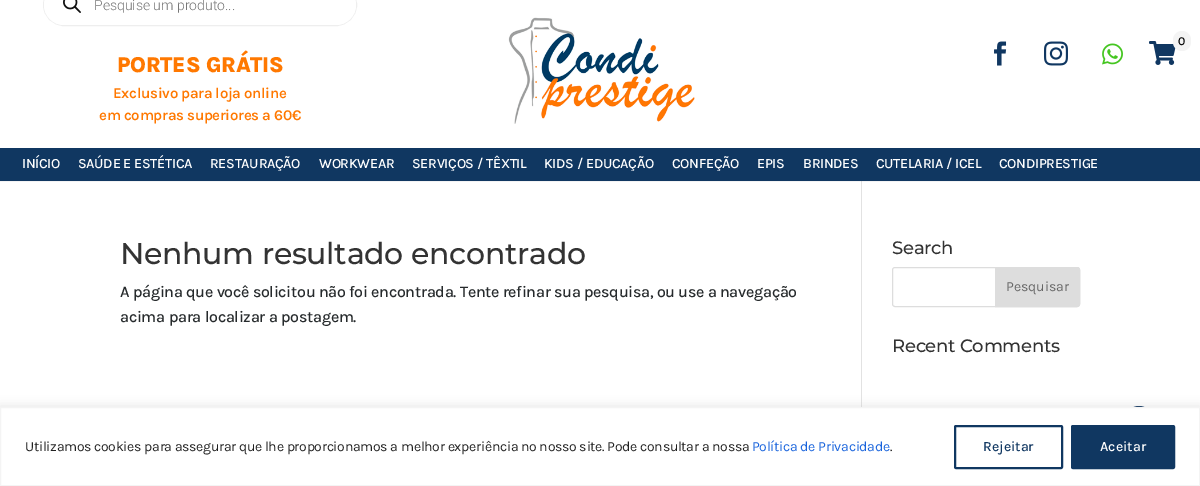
%!PS
<< /PageSize [1200 486] /PageUsesTransparency true >> setpagedevice
/mt/moveto load def
/li/lineto load def
/ct/curveto load def
/cp/closepath load def
/fl/fill load def
/st/stroke load def
/gs/gsave load def
/gr/grestore load def
/lw/setlinewidth load def
/co { dup -16 bitshift 255 div exch dup -8 bitshift 255 and 255 div exch 255 and 255 div setrgbcolor } def
/fn { [ exch dup neg 0 0 3 -1 roll 0 0 ] selectfont } def
/tx { co fn moveto show } def
/bx { co rectfill } def
/al { dup .setfillconstantalpha .setstrokeconstantalpha } def
/ci { newpath 0 360 arc closepath } def
/rr { 5 dict begin { /r /h /w /y /x } { exch def } forall
  x r add y moveto x w add y 2 copy h add r arct x w add y h add x 1 index r arct
  x y h add x y r arct x y 2 copy exch w add exch r arct closepath end } def
/sh { 12 dict begin { /a /b /q /h /w /y /x } { exch def } forall gsave /was 0 def
  9 -2 -9 { dup b mul 4 div /e exch def 1 sub .425 mul 2.718 exch exp 1 add a .99 .min exch div /now exch def
    1 1 now sub 1 was sub div sub al /was now def
    w h .min e 2 mul add 0 gt { x e sub y e sub w e 2 mul add h e 2 mul add
      q e add b .6 mul add w h .min 2 div e add .min 0 .max rr fill } if } for grestore end } def
/im { 5 dict begin { /h /w /y /x /name } { exch def } forall
  gsave x y translate w h scale
  w h 8 [w 0 0 h 0 0] name (r) file false 3 colorimage grestore end } def
0 .pushpdf14devicefilter
0 486 translate 1 -1 scale
4 setmiterlimit
0 0 1200 486 16#FFFFFF bx
16#EEEEEE co
43.5 -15.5 313 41 20.5 rr st
16#FFFFFF co
44 -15 312 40 20 rr fl
(media/1.raw) 63 0 18 13 im
(media/2.raw) 508 17 187 107 im
(media/3.raw) 994 41 13 25 im
(media/4.raw) 1044 41 24 25 im
(media/5.raw) 1102 43 21 22 im
(media/6.raw) 1149 41 27 24 im
16#F4F4F4 co
1173 31 18 20 9 rr fl
0 148 1200 33 16#103761 bx
0 181 1200 1 16#F3F3F4 bx
861 181 1 226 16#E2E2E2 bx
861 181 1 1 16#D8D8D8 bx
16#DDDDDD co
892.5 267.5 187 39 2.5 rr st
995.5 267.5 mt 1077 267.5 li 1078.5 267.5 1079.5 268.5 1079.5 270 ct 1079.5 304 li 1079.5 305.5 1078.5 306.5 1077 306.5 ct 995.5 306.5 li cp gs fl gr
st
16#103761 co
1139 420 14 ci fl
16#ACABAB co
0 406 1200 79 0 5 .3 sh
16#FFFFFF co
.5 407.5 mt 1199.5 407.5 li 1199.5 485.5 li .5 485.5 li cp gs fl gr
16#F4F4F4 co
st
16#103761 co
2 lw
955 426 107 42 1 rr st
1072 426 102 42 1 rr gs fl gr
st
(Pesquise um produto...) 94 10 /Roboto-Light 14 16#777777 tx
/Karla-ExtraBold 22 fn
16#FF7800 co
117 72 mt -.3 0 (PORTES GRÁTIS) ashow
/Karla-SemiBold 15 fn
113 98 mt -.3 0 (Exclusivo para loja online) ashow
99 120 mt -.3 0 (em compras superiores a 60€) ashow
/Karla-Medium 12 fn
16#000000 co
1178 45 mt -.3 0 (0) ashow
/Karla-Medium 14 fn
16#FFFFFF co
22 168 mt -.3 0 (INÍCIO) ashow
78 168 mt -.3 0 (SAÚDE E ESTÉTICA) ashow
210 168 mt -.3 0 (RESTAURAÇÃO) ashow
319 168 mt -.3 0 (WORKWEAR) ashow
412 168 mt -.3 0 (SERVIÇOS / TÊXTIL) ashow
544 168 mt -.3 0 (KIDS / EDUCAÇÃO) ashow
672 168 mt -.3 0 (CONFEÇÃO) ashow
757 168 mt -.3 0 (EPIS) ashow
803 168 mt -.3 0 (BRINDES) ashow
876 168 mt -.3 0 (CUTELARIA / ICEL) ashow
999 168 mt -.3 0 (CONDIPRESTIGE) ashow
/Montserrat-Thin 30 fn
16#333333 co
120 264 mt -.3 0 (Nenhum resultado encontrado) ashow
/Karla-Medium 16 fn
16#262A2C co
120 297 mt -.3 0 (A página que você solicitou não foi encontrada. Tente refinar sua pesquisa, ou use a navegação) ashow
120 322 mt -.3 0 (acima para localizar a postagem.) ashow
/Montserrat-Thin 18 fn
16#333333 co
892 254 mt -.3 0 (Search) ashow
(Pesquisar) 1006 291 /Karla-Regular 14 16#666666 tx
/Montserrat-Thin 18 fn
16#333333 co
892 352 mt -.3 0 (Recent Comments) ashow
/Karla-Regular 14 fn
16#212121 co
25 451 mt -.3 0 (Utilizamos cookies para assegurar que lhe proporcionamos a melhor experiência no nosso site. Pode consultar a nossa) ashow
16#1863DC co
752 451 mt -.3 0 (Política de Privacidade) ashow
16#212121 co
890 451 mt -.3 0 (.) ashow
(Rejeitar) 983 451 /Karla-Medium 14 16#103761 tx
(Aceitar) 1100 451 /Karla-Medium 14 16#FFFFFF tx
.poppdf14devicefilter showpage
